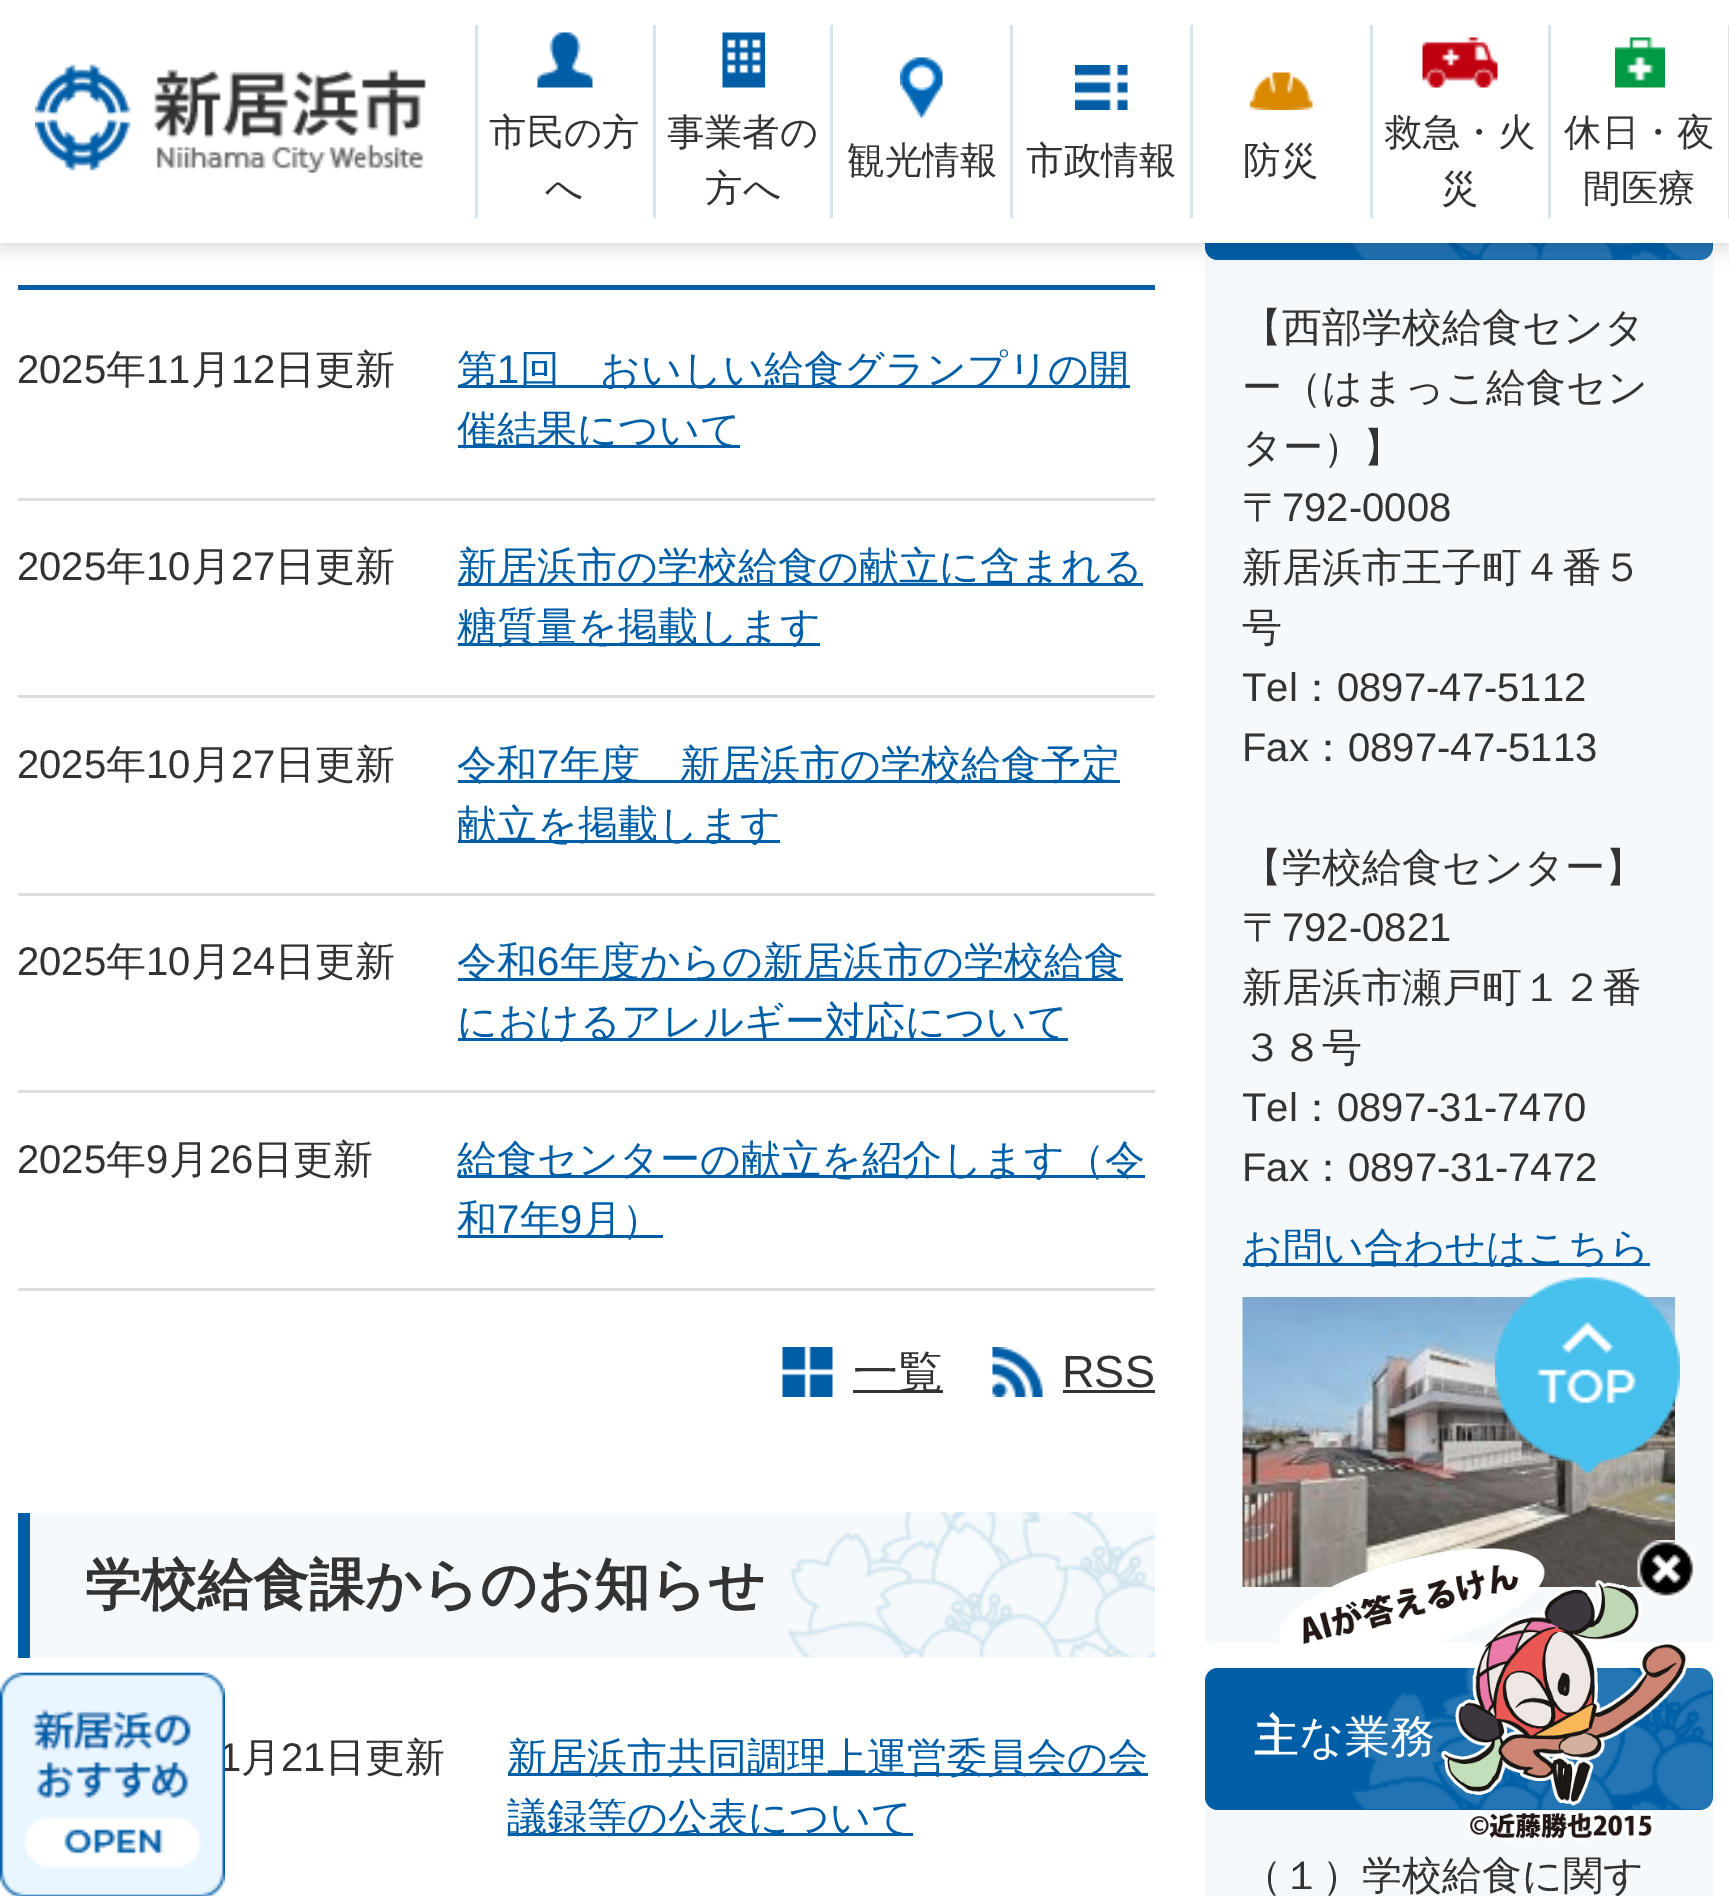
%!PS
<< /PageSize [1729 1896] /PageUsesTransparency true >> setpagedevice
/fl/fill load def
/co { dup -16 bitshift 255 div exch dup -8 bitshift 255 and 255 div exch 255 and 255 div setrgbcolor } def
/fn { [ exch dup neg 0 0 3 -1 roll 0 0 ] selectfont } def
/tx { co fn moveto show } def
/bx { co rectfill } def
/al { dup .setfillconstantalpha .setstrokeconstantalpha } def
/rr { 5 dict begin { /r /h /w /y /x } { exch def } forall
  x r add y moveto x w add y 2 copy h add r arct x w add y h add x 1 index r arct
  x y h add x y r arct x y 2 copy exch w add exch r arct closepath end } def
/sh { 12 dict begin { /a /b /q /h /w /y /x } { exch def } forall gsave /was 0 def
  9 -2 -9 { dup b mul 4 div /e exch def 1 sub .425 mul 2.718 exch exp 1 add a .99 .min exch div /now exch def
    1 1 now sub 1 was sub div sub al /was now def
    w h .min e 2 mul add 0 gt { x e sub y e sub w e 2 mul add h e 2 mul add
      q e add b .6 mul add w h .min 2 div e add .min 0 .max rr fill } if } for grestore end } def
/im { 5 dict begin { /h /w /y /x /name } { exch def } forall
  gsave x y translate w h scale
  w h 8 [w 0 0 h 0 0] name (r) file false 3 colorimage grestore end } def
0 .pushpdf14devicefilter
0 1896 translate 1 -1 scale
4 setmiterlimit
0 0 1729 1896 16#FFFFFF bx
1205 247 508 1396 16#F5F9FB bx
16#005EA7 co
1205 118 508 142 13 rr fl
(media/12.raw) 1352 243 361 17 im
16#000000 co
0 0 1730 243 0 12.5 .2 sh
0 0 1729 243 16#FFFFFF bx
(media/1.raw) 35 64 391 109 im
653 25 3 193 16#D6E5ED bx
475 25 3 193 16#D6E5ED bx
(media/2.raw) 537 32 56 56 im
830 25 3 193 16#D6E5ED bx
(media/3.raw) 722 32 43 56 im
1010 25 3 193 16#D6E5ED bx
(media/4.raw) 900 57 43 61 im
1190 25 3 193 16#D6E5ED bx
(media/5.raw) 1075 65 53 45 im
1370 25 3 193 16#D6E5ED bx
(media/6.raw) 1250 72 63 38 im
1548 25 3 193 16#D6E5ED bx
(media/7.raw) 1422 37 76 51 im
1728 25 1 193 16#D6E5ED bx
(media/8.raw) 1615 37 50 51 im
18 285 1137 5 16#005EA7 bx
18 498 1137 3 16#DDDDDD bx
458 385 672 3 16#005EA7 bx
458 445 282 3 16#005EA7 bx
18 695 1137 3 16#DDDDDD bx
458 583 685 3 16#005EA7 bx
458 643 362 3 16#005EA7 bx
18 893 1137 3 16#DDDDDD bx
458 780 662 3 16#005EA7 bx
458 840 322 3 16#005EA7 bx
18 1090 1137 3 16#DDDDDD bx
458 978 665 3 16#005EA7 bx
458 1038 610 3 16#005EA7 bx
18 1288 1137 3 16#DDDDDD bx
458 1175 687 3 16#005EA7 bx
458 1235 205 3 16#005EA7 bx
(media/9.raw) 782 1347 51 50 im
853 1390 90 3 16#333333 bx
(media/10.raw) 992 1347 51 50 im
1063 1390 92 3 16#333333 bx
30 1513 1125 145 16#F5F9FB bx
(media/11.raw) 787 1512 368 145 im
18 1513 12 145 16#005EA7 bx
508 1773 640 3 16#005EA7 bx
508 1833 405 3 16#005EA7 bx
1243 1263 407 3 16#005EA7 bx
(media/13.raw) 1242 1297 433 290 im
1205 1668 508 228 16#F5F9FB bx
16#005EA7 co
1205 1668 508 142 13 rr fl
(media/14.raw) 1352 1667 361 143 im
(media/15.raw) 1495 1277 185 196 im
(市民の方) 489 145 /WenQuanYiZenHei-Medium 37.5 16#333333 tx
(へ) 545 201 /WenQuanYiZenHei-Medium 37.5 16#333333 tx
(事業者の) 667 145 /WenQuanYiZenHei-Medium 37.5 16#333333 tx
(方へ) 705 201 /WenQuanYiZenHei-Medium 37.5 16#333333 tx
(観光情報) 847 173 /WenQuanYiZenHei-Medium 37.5 16#333333 tx
(市政情報) 1026 173 /WenQuanYiZenHei-Medium 37.5 16#333333 tx
(防災) 1243 173 /WenQuanYiZenHei-Medium 37.5 16#333333 tx
(救急・火) 1385 145 /WenQuanYiZenHei-Medium 37.5 16#333333 tx
(災) 1441 201 /WenQuanYiZenHei-Medium 37.5 16#333333 tx
(休日・夜) 1564 145 /WenQuanYiZenHei-Medium 37.5 16#333333 tx
(間医療) 1583 201 /WenQuanYiZenHei-Medium 37.5 16#333333 tx
(2025) 17 383 /LiberationSans-Regular 40 16#333333 tx
(年) 106 383 /WenQuanYiZenHei-Medium 40 16#333333 tx
(11) 146 383 /LiberationSans-Regular 40 16#333333 tx
(月) 191 383 /WenQuanYiZenHei-Medium 40 16#333333 tx
(12) 231 383 /LiberationSans-Regular 40 16#333333 tx
(日更新) 275 383 /WenQuanYiZenHei-Medium 40 16#333333 tx
(第) 457 383 /WenQuanYiZenHei-Medium 40 16#005EA7 tx
(1) 497 383 /LiberationSans-Regular 40 16#005EA7 tx
(回　おいしい給食グランプリの開) 520 383 /WenQuanYiZenHei-Medium 40 16#005EA7 tx
(催結果について) 457 443 /WenQuanYiZenHei-Medium 40 16#005EA7 tx
(2025) 17 580 /LiberationSans-Regular 40 16#333333 tx
(年) 106 580 /WenQuanYiZenHei-Medium 40 16#333333 tx
(10) 146 580 /LiberationSans-Regular 40 16#333333 tx
(月) 191 580 /WenQuanYiZenHei-Medium 40 16#333333 tx
(27) 231 580 /LiberationSans-Regular 40 16#333333 tx
(日更新) 275 580 /WenQuanYiZenHei-Medium 40 16#333333 tx
(新居浜市の学校給食の献立に含まれる) 457 580 /WenQuanYiZenHei-Medium 40 16#005EA7 tx
(糖質量を掲載します) 457 640 /WenQuanYiZenHei-Medium 40 16#005EA7 tx
(2025) 17 778 /LiberationSans-Regular 40 16#333333 tx
(年) 106 778 /WenQuanYiZenHei-Medium 40 16#333333 tx
(10) 146 778 /LiberationSans-Regular 40 16#333333 tx
(月) 191 778 /WenQuanYiZenHei-Medium 40 16#333333 tx
(27) 231 778 /LiberationSans-Regular 40 16#333333 tx
(日更新) 275 778 /WenQuanYiZenHei-Medium 40 16#333333 tx
(令和) 457 778 /WenQuanYiZenHei-Medium 40 16#005EA7 tx
(7) 537 778 /LiberationSans-Regular 40 16#005EA7 tx
(年度　新居浜市の学校給食予定) 560 778 /WenQuanYiZenHei-Medium 40 16#005EA7 tx
(献立を掲載します) 457 838 /WenQuanYiZenHei-Medium 40 16#005EA7 tx
(2025) 17 975 /LiberationSans-Regular 40 16#333333 tx
(年) 106 975 /WenQuanYiZenHei-Medium 40 16#333333 tx
(10) 146 975 /LiberationSans-Regular 40 16#333333 tx
(月) 191 975 /WenQuanYiZenHei-Medium 40 16#333333 tx
(24) 231 975 /LiberationSans-Regular 40 16#333333 tx
(日更新) 275 975 /WenQuanYiZenHei-Medium 40 16#333333 tx
(令和) 457 975 /WenQuanYiZenHei-Medium 40 16#005EA7 tx
(6) 537 975 /LiberationSans-Regular 40 16#005EA7 tx
(年度からの新居浜市の学校給食) 560 975 /WenQuanYiZenHei-Medium 40 16#005EA7 tx
(におけるアレルギー対応について) 457 1035 /WenQuanYiZenHei-Medium 40 16#005EA7 tx
(2025) 17 1173 /LiberationSans-Regular 40 16#333333 tx
(年) 106 1173 /WenQuanYiZenHei-Medium 40 16#333333 tx
(9) 146 1173 /LiberationSans-Regular 40 16#333333 tx
(月) 169 1173 /WenQuanYiZenHei-Medium 40 16#333333 tx
(26) 209 1173 /LiberationSans-Regular 40 16#333333 tx
(日更新) 253 1173 /WenQuanYiZenHei-Medium 40 16#333333 tx
(給食センターの献立を紹介します（令) 457 1173 /WenQuanYiZenHei-Medium 40 16#005EA7 tx
(和) 457 1233 /WenQuanYiZenHei-Medium 40 16#005EA7 tx
(7) 497 1233 /LiberationSans-Regular 40 16#005EA7 tx
(年) 520 1233 /WenQuanYiZenHei-Medium 40 16#005EA7 tx
(9) 560 1233 /LiberationSans-Regular 40 16#005EA7 tx
(月）) 582 1233 /WenQuanYiZenHei-Medium 40 16#005EA7 tx
(一覧) 853 1387 /WenQuanYiZenHei-Medium 45 16#333333 tx
(RSS) 1062 1387 /LiberationSans-Regular 45 16#333333 tx
(学校給食課からのお知らせ) 85 1604 /WenQuanYiZenHei-Bold 56 16#333333 tx
(1) 219 1771 /LiberationSans-Regular 40 16#333333 tx
(月) 241 1771 /WenQuanYiZenHei-Medium 40 16#333333 tx
(21) 281 1771 /LiberationSans-Regular 40 16#333333 tx
(日更新) 325 1771 /WenQuanYiZenHei-Medium 40 16#333333 tx
(新居浜市共同調理上運営委員会の会) 507 1771 /WenQuanYiZenHei-Medium 40 16#005EA7 tx
(議録等の公表について) 507 1831 /WenQuanYiZenHei-Medium 40 16#005EA7 tx
(【西部学校給食センタ) 1242 341 /WenQuanYiZenHei-Medium 40 16#333333 tx
(ー（はまっこ給食セン) 1242 401 /WenQuanYiZenHei-Medium 40 16#333333 tx
(ター）】) 1242 461 /WenQuanYiZenHei-Medium 40 16#333333 tx
(〒) 1242 521 /WenQuanYiZenHei-Medium 40 16#333333 tx
(792-0008) 1282 521 /LiberationSans-Regular 40 16#333333 tx
(新居浜市王子町４番５) 1242 581 /WenQuanYiZenHei-Medium 40 16#333333 tx
(号) 1242 641 /WenQuanYiZenHei-Medium 40 16#333333 tx
(Tel) 1242 701 /LiberationSans-Regular 40 16#333333 tx
(：) 1297 701 /WenQuanYiZenHei-Medium 40 16#333333 tx
(0897-47-5112) 1337 701 /LiberationSans-Regular 40 16#333333 tx
(Fax) 1242 761 /LiberationSans-Regular 40 16#333333 tx
(：) 1308 761 /WenQuanYiZenHei-Medium 40 16#333333 tx
(0897-47-5113) 1348 761 /LiberationSans-Regular 40 16#333333 tx
(【学校給食センター】) 1242 881 /WenQuanYiZenHei-Medium 40 16#333333 tx
(〒) 1242 941 /WenQuanYiZenHei-Medium 40 16#333333 tx
(792-0821) 1282 941 /LiberationSans-Regular 40 16#333333 tx
(新居浜市瀬戸町１２番) 1242 1001 /WenQuanYiZenHei-Medium 40 16#333333 tx
(３８号) 1242 1061 /WenQuanYiZenHei-Medium 40 16#333333 tx
(Tel) 1242 1121 /LiberationSans-Regular 40 16#333333 tx
(：) 1297 1121 /WenQuanYiZenHei-Medium 40 16#333333 tx
(0897-31-7470) 1337 1121 /LiberationSans-Regular 40 16#333333 tx
(Fax) 1242 1181 /LiberationSans-Regular 40 16#333333 tx
(：) 1308 1181 /WenQuanYiZenHei-Medium 40 16#333333 tx
(0897-31-7472) 1348 1181 /LiberationSans-Regular 40 16#333333 tx
(お問い合わせはこちら) 1242 1261 /WenQuanYiZenHei-Medium 40 16#005EA7 tx
(主な業務) 1254 1752 /WenQuanYiZenHei-Bold 45 16#FFFFFF tx
(（１）学校給食に関す) 1242 1889 /WenQuanYiZenHei-Medium 40 16#333333 tx
(media/16.raw) 0 1672 225 224 im
(media/18.raw) 1279 1548 408 293 im
(media/17.raw) 1637 1540 58 58 im
.poppdf14devicefilter showpage
